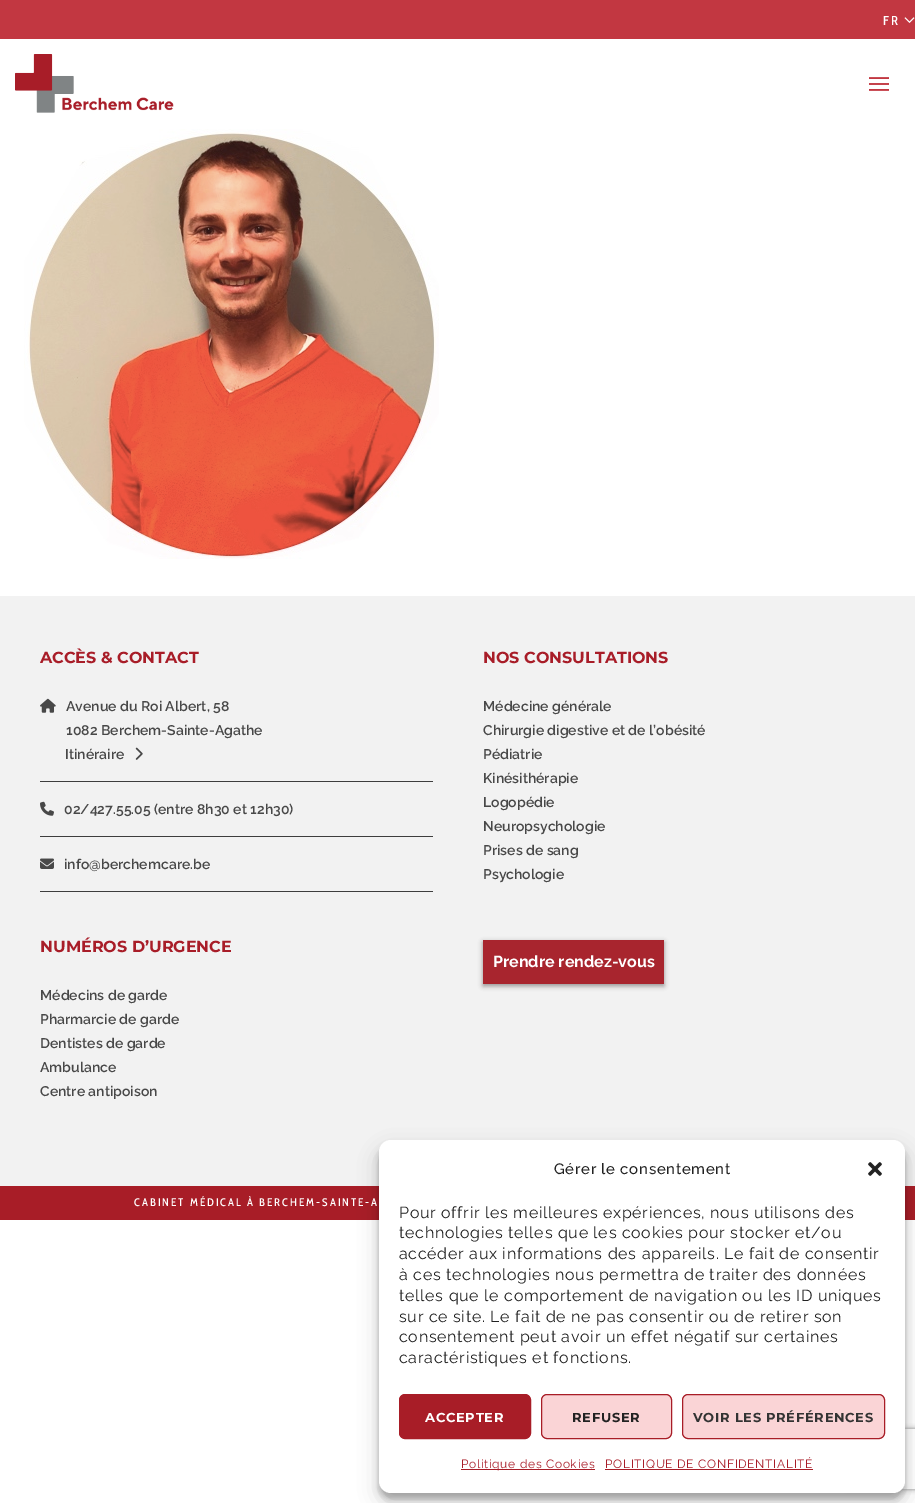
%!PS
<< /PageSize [915 1503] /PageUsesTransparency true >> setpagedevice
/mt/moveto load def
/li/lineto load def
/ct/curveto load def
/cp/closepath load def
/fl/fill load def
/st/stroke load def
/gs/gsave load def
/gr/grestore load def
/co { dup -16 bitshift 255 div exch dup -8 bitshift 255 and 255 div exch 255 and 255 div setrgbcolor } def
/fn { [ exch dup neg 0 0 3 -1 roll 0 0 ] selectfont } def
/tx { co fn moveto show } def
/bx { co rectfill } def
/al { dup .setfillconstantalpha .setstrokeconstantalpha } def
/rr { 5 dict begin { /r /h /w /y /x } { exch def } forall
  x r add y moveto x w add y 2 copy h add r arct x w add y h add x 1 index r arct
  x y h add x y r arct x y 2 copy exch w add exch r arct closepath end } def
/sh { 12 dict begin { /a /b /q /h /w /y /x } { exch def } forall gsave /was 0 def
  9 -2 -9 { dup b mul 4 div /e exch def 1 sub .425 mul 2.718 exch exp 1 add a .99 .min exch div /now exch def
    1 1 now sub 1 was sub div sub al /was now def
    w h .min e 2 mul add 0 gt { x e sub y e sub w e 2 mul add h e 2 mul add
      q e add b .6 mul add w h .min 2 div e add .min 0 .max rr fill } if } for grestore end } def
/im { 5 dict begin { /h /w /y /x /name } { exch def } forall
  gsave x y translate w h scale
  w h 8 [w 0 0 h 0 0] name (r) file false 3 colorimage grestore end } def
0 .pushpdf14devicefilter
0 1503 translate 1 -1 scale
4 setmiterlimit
0 0 915 1503 16#FFFFFF bx
0 0 915 39 16#C23741 bx
(media/1.raw) 904 17 11 6 im
(media/2.raw) 15 54 159 59 im
(media/3.raw) 869 77 20 14 im
(media/4.raw) 24 129 415 430 im
0 596 915 590 16#F2F2F2 bx
(media/5.raw) 40 698 16 15 im
40 781 393 1 16#3E3E3E bx
(media/6.raw) 135 747 8 13 im
40 836 393 1 16#3E3E3E bx
(media/7.raw) 40 801 14 15 im
40 891 393 1 16#3E3E3E bx
(media/8.raw) 40 858 14 11 im
16#8C8989 co
483 942 181 44 0 2.5 .91 sh
483 940 181 44 16#A8252E bx
0 1186 915 34 16#A81D27 bx
16#000000 co
379 1146 526 353 12 3 .23 sh
379 1150 526 353 12 10 .19 sh
gs
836 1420 mt 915 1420 li 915 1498 li 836 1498 li cp 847 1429 mt 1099 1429 li 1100 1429 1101 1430 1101 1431 ct 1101 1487 li 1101 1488 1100 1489 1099 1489 ct 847 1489 li 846 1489 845 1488 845 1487 ct 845 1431 li 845 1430 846 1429 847 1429 ct cp eoclip newpath
16#808080 co
845 1429 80 60 2 2.5 1 sh
gr
16#FFFFFF co
379 1140 526 353 12 rr fl
(media/9.raw) 868 1162 14 14 im
16#A81D27 co
399.5 1394.5 131 44 5.5 rr gs fl gr
st
16#FAD4D6 co
541.5 1394.5 130 44 5.5 rr gs fl gr
16#A81D27 co
st
16#FAD4D6 co
682.5 1394.5 202 44 5.5 rr gs fl gr
16#A81D27 co
st
461 1469 134 1 16#A81D27 bx
605 1469 208 1 16#A81D27 bx
/CabinCondensed-Medium 13 fn
16#FFFFFF co
883 25 mt 2 0 (FR) ashow
(ACCÈS & CONTACT) 40 663 /Montserrat-Bold 16 16#A81D28 tx
(Avenue du Roi Albert, 58) 66 711 /Raleway-SemiBold 14 16#484848 tx
(1082 Berchem-Sainte-Agathe) 66 735 /Raleway-SemiBold 14 16#484848 tx
(Itinéraire) 65 759 /Raleway-SemiBold 14 16#484848 tx
(02/427.55.05 \(entre 8h30 et 12h30\)) 64 814 /Raleway-SemiBold 14 16#484848 tx
(info@berchemcare.be) 64 869 /Raleway-SemiBold 14 16#484848 tx
(NOS CONSULTATIONS) 483 663 /Montserrat-Bold 16 16#A81D28 tx
(Médecine générale) 483 711 /Raleway-SemiBold 14 16#484848 tx
(Chirurgie digestive et de l’obésité) 483 735 /Raleway-SemiBold 14 16#484848 tx
(Pédiatrie) 483 759 /Raleway-SemiBold 14 16#484848 tx
(Kinésithérapie) 483 783 /Raleway-SemiBold 14 16#484848 tx
(Logopédie) 483 807 /Raleway-SemiBold 14 16#484848 tx
(Neuropsychologie) 483 831 /Raleway-SemiBold 14 16#484848 tx
(Prises de sang) 483 855 /Raleway-SemiBold 14 16#484848 tx
(Psychologie) 483 879 /Raleway-SemiBold 14 16#484848 tx
(NUMÉROS D’URGENCE) 40 952 /Montserrat-Bold 16 16#A81D28 tx
(Médecins de garde) 40 1000 /Raleway-SemiBold 14 16#484848 tx
(Pharmarcie de garde) 40 1024 /Raleway-SemiBold 14 16#484848 tx
(Dentistes de garde) 40 1048 /Raleway-SemiBold 14 16#484848 tx
(Ambulance) 40 1072 /Raleway-SemiBold 14 16#484848 tx
(Centre antipoison) 40 1096 /Raleway-SemiBold 14 16#484848 tx
(Prendre rendez-vous) 493 967 /Raleway-Bold 16 16#FFFFFF tx
/CabinCondensed-Medium 11 fn
134 1206 mt 2 0 (CABINET MÉDICAL À BERCHEM-SAINTE-A) ashow
/Raleway-Medium 15 fn
16#222222 co
554 1174 mt .7 0 (Gérer le consentement) ashow
/Raleway-Regular 16 fn
399 1218 mt .7 0 (Pour offrir les meilleures expériences, nous utilisons des) ashow
399 1238 mt .7 0 (technologies telles que les cookies pour stocker et/ou) ashow
399 1259 mt .7 0 (accéder aux informations des appareils. Le fait de consentir) ashow
399 1280 mt .7 0 (à ces technologies nous permettra de traiter des données) ashow
399 1301 mt .7 0 (telles que le comportement de navigation ou les ID uniques) ashow
399 1322 mt .7 0 (sur ce site. Le fait de ne pas consentir ou de retirer son) ashow
399 1342 mt .7 0 (consentement peut avoir un effet négatif sur certaines) ashow
399 1363 mt .7 0 (caractéristiques et fonctions.) ashow
/Montserrat-Bold 13 fn
16#FFFFFF co
425 1422 mt .7 0 (ACCEPTER) ashow
16#222222 co
572 1422 mt .7 0 (REFUSER) ashow
16#333333 co
693 1422 mt .7 0 (VOIR LES PRÉFÉRENCES) ashow
/Raleway-Regular 12 fn
16#A81D28 co
461 1468 mt .7 0 (Politique des Cookies) ashow
605 1468 mt .7 0 (POLITIQUE DE CONFIDENTIALITÉ) ashow
.poppdf14devicefilter showpage
